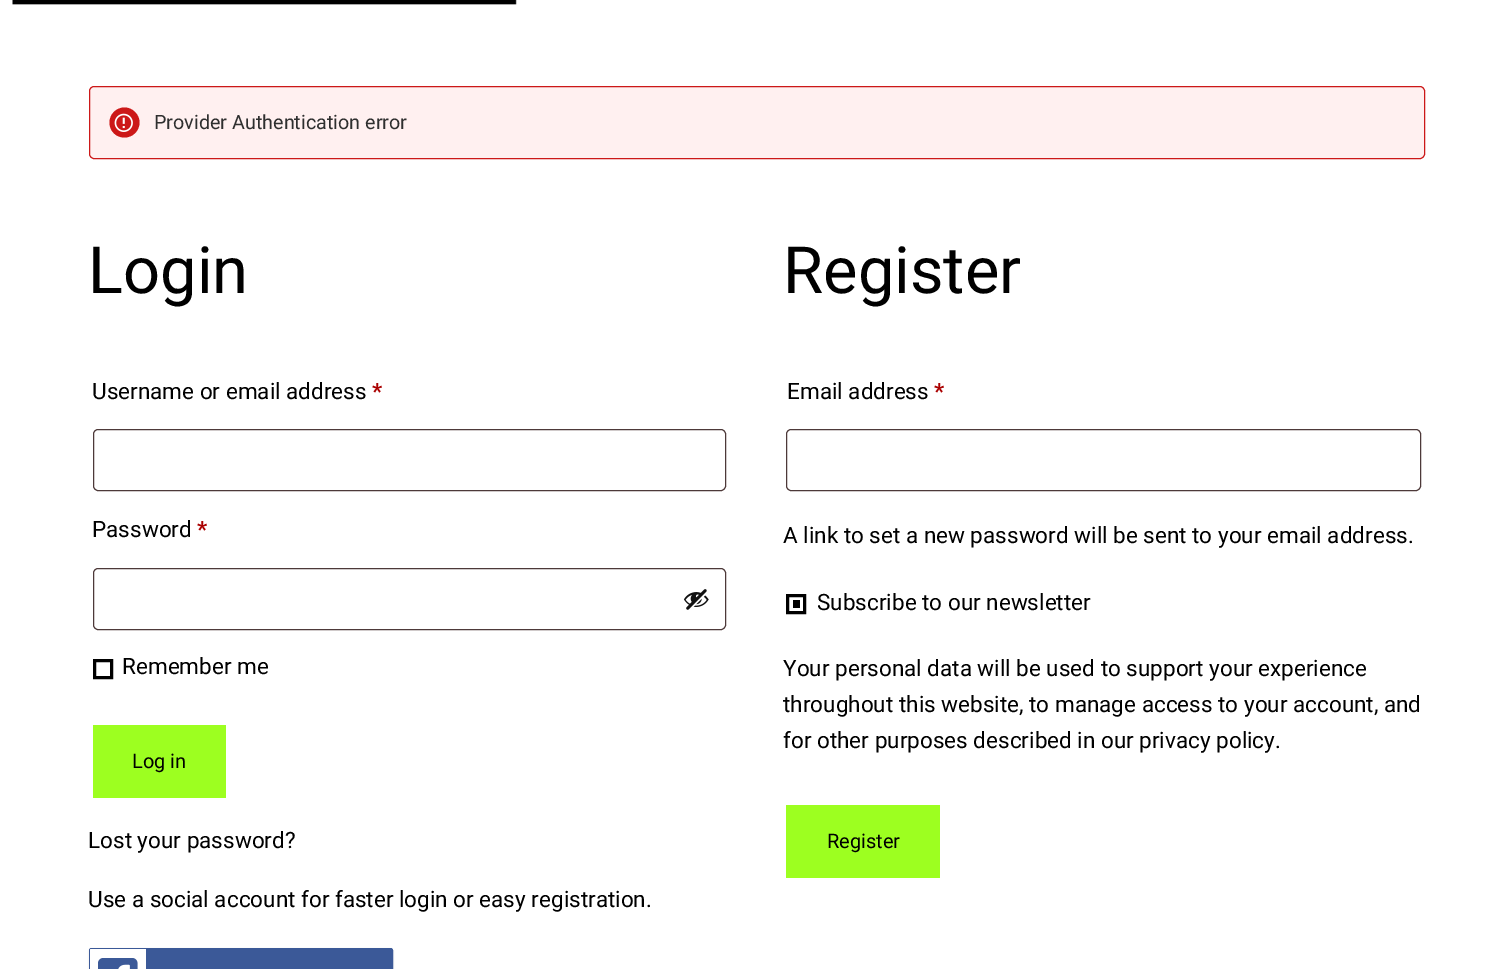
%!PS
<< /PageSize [1512 969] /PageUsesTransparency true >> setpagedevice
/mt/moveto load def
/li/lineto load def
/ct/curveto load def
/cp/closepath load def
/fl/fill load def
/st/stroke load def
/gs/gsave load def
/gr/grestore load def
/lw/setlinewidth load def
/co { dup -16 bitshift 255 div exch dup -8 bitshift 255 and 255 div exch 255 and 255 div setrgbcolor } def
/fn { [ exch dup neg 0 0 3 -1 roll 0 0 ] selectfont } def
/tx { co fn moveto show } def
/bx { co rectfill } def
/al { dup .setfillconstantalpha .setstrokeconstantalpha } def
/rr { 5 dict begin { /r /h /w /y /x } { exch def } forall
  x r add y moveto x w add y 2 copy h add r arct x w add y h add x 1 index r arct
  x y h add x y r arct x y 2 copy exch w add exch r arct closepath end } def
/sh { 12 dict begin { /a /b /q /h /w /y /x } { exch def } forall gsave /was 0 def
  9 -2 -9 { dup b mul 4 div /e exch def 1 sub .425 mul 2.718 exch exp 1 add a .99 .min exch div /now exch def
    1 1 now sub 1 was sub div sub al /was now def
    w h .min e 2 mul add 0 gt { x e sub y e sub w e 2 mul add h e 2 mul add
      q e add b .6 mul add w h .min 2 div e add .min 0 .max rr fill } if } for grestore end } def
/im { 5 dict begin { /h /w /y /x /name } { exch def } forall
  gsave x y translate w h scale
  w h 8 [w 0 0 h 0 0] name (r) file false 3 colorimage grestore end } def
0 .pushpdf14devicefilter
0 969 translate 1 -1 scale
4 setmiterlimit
0 0 1512 969 16#FFFFFF bx
(media/1.raw) 12 0 505 5 im
16#FFF0F0 co
89.5 86.5 1335 72 4.5 rr gs fl gr
16#CC1818 co
st
124.5 137.5 mt 116 137.5 109.5 131 109.5 122.5 ct 109.5 114.5 116 107.5 124.5 107.5 ct 132.5 107.5 139.5 114.5 139.5 122.5 ct 139.5 131 132.5 137.5 124.5 137.5 ct cp fl
(media/2.raw) 114 113 19 19 im
16#4D3939 co
93.5 429.5 632 61 4.5 rr st
93.5 568.5 632 61 4.5 rr st
(media/3.raw) 683 589 26 21 im
16#000000 co
3 lw
94.5 660.5 17 17 rectstroke
93 725 133 73 16#9DFF20 bx
16#000000 co
89 949 304 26 2.5 1 .1 sh
16#3B5998 co
89.5 948.5 303 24 2 rr gs fl gr
1 lw
st
16#FFFFFF co
91 949 mt 146 949 li 146 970 li 91 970 li 90.5 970 90 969.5 90 969 ct 90 950 li 90 949.5 90.5 949 91 949 ct cp fl
(media/4.raw) 98 958 40 11 im
16#4D3939 co
786.5 429.5 634 61 4.5 rr st
793 600 7 8 16#000000 bx
3 lw
787.5 595.5 17 17 rectstroke
786 805 154 73 16#9DFF20 bx
(Provider Authentication error) 154 129 /Roboto-Regular 19.75 16#2F2F2F tx
(Login) 88 293 /Roboto-Regular 65 16#000000 tx
(Username or email address) 92 399 /Roboto-Regular 22.5 16#000000 tx
(*) 372 399 /Roboto-Bold 22.5 16#AA0000 tx
(Password) 92 537 /Roboto-Regular 22.5 16#000000 tx
(*) 197 537 /Roboto-Bold 22.5 16#AA0000 tx
(Remember me) 122 674 /Roboto-Regular 22.5 16#000000 tx
(Log in) 132 768 /Roboto-Regular 20 16#000000 tx
(Lost your password?) 88 848 /Roboto-Regular 22.5 16#000000 tx
(Use a social account for faster login or easy registration.) 88 907 /Roboto-Regular 22.5 16#000000 tx
(Register) 783 293 /Roboto-Regular 65 16#000000 tx
(Email address) 787 399 /Roboto-Regular 22.5 16#000000 tx
(*) 934 399 /Roboto-Bold 22.5 16#AA0000 tx
(A link to set a new password will be sent to your email address.) 783 543 /Roboto-Regular 22.5 16#000000 tx
(Subscribe to our newsletter) 817 610 /Roboto-Regular 22.5 16#000000 tx
(Your personal data will be used to support your experience) 783 676 /Roboto-Regular 22.5 16#000000 tx
(throughout this website, to manage access to your account, and) 783 712 /Roboto-Regular 22.5 16#000000 tx
(for other purposes described in our privacy policy.) 783 748 /Roboto-Regular 22.5 16#000000 tx
(Register) 827 848 /Roboto-Regular 20 16#000000 tx
.poppdf14devicefilter showpage
